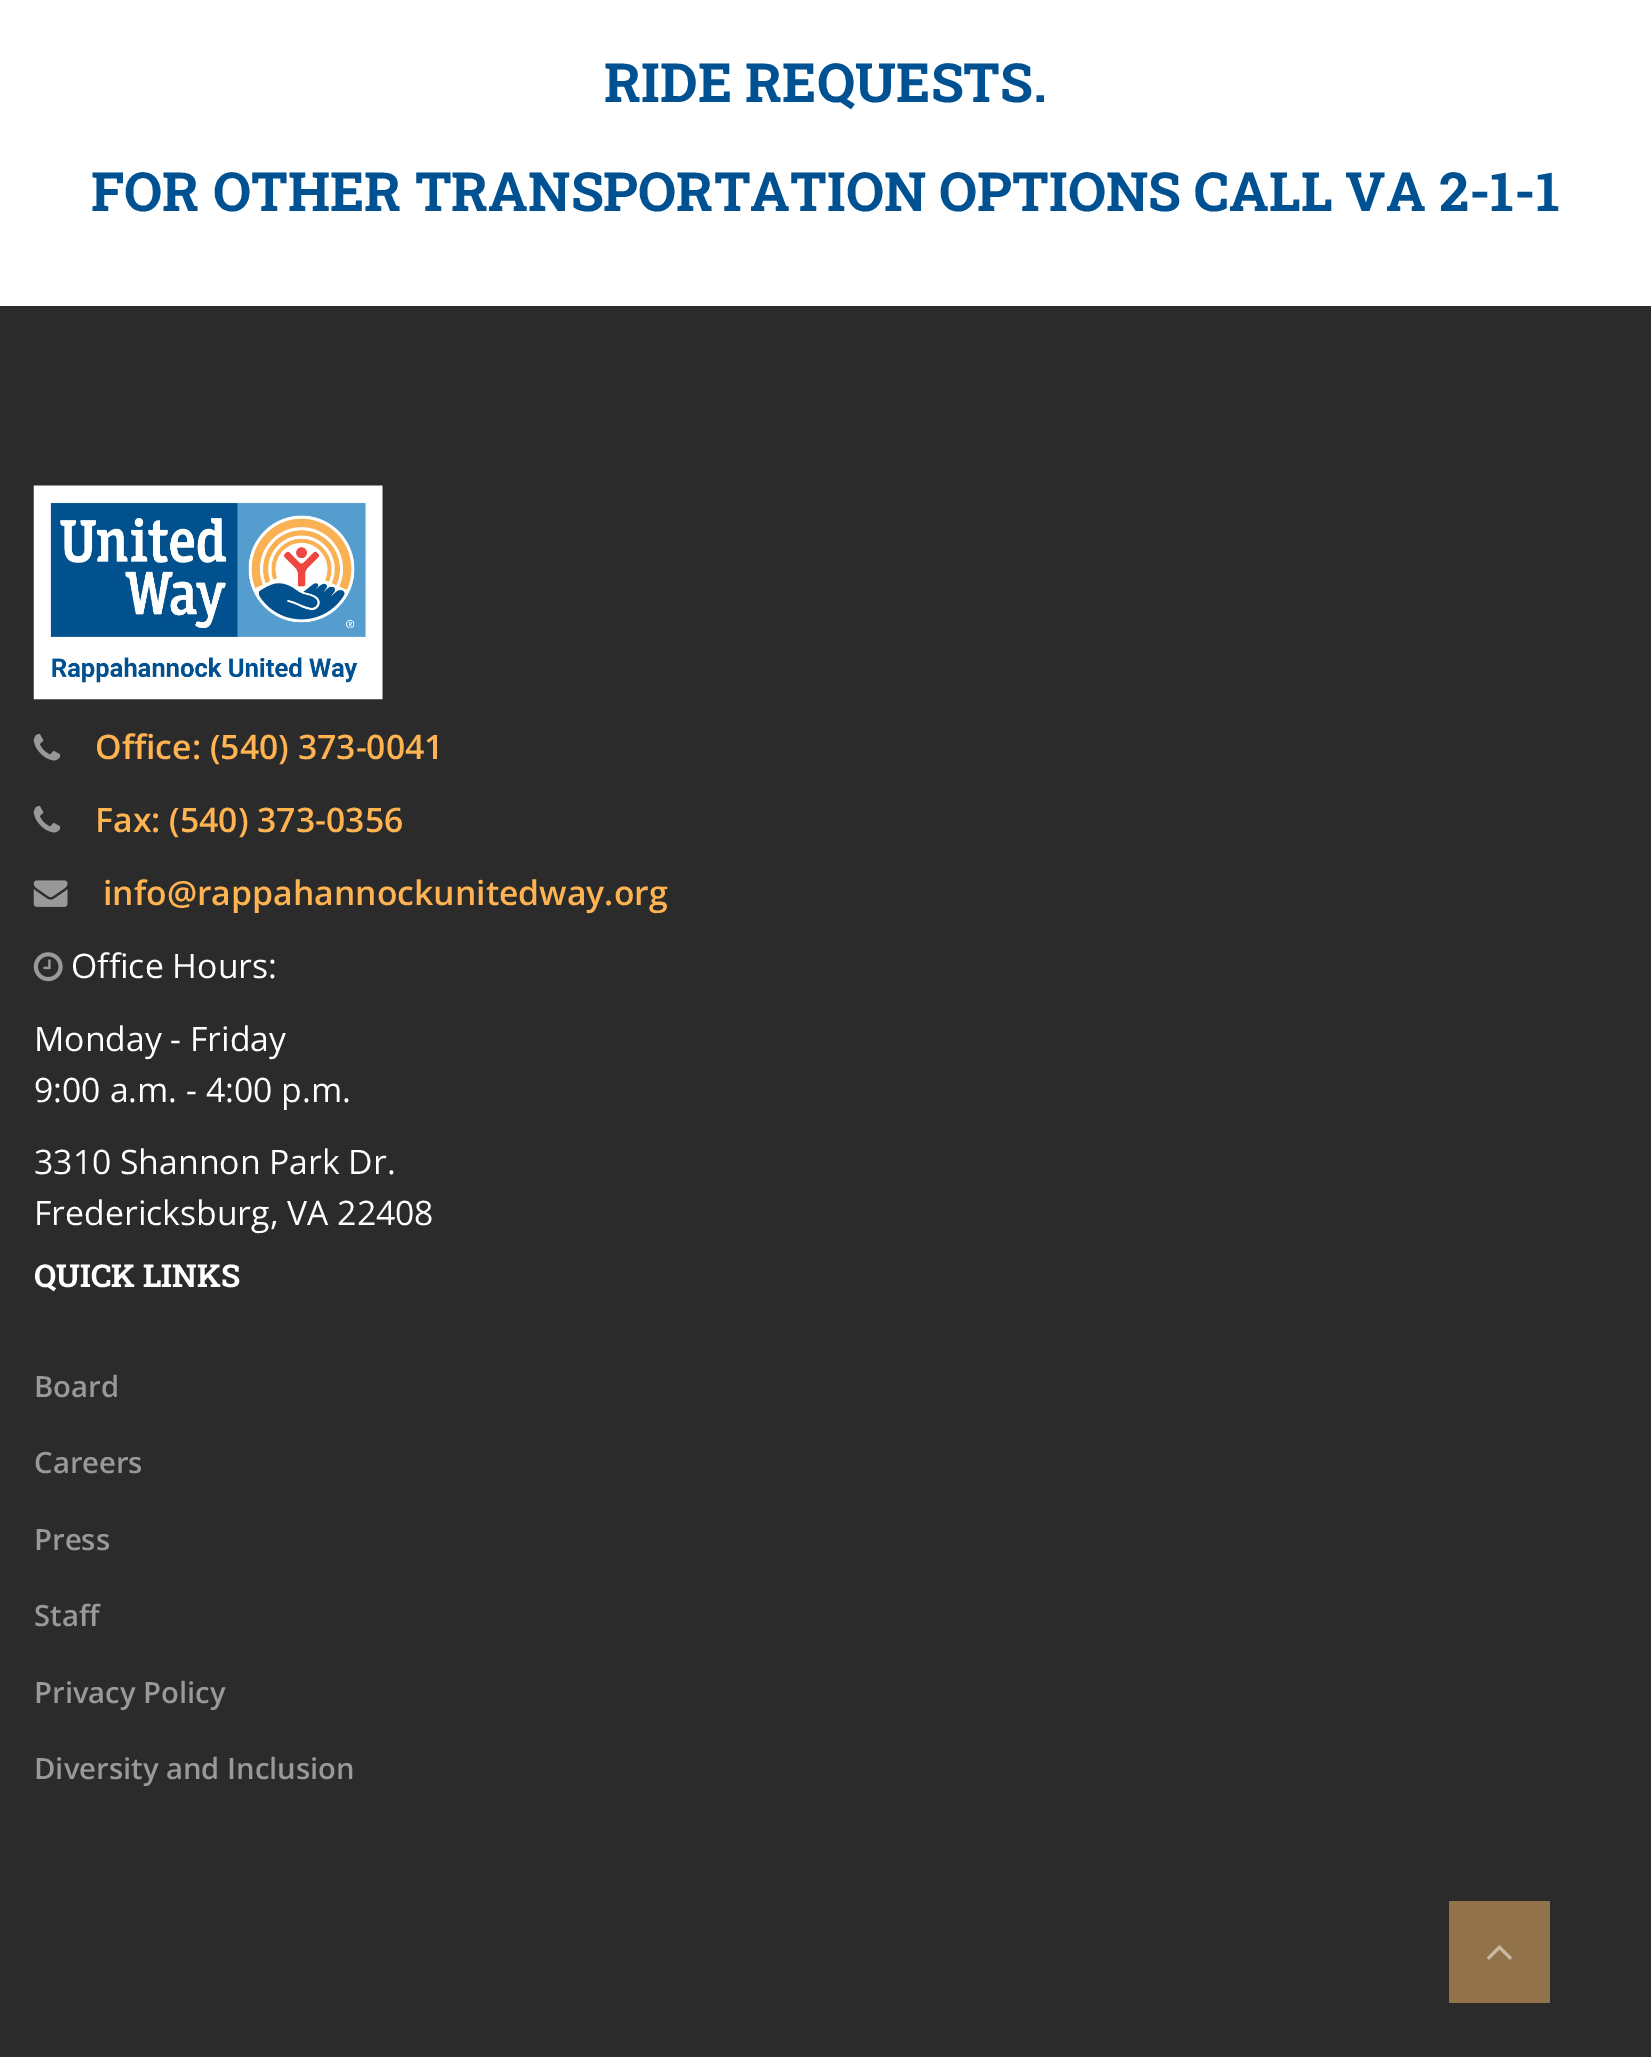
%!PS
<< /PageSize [1651 2057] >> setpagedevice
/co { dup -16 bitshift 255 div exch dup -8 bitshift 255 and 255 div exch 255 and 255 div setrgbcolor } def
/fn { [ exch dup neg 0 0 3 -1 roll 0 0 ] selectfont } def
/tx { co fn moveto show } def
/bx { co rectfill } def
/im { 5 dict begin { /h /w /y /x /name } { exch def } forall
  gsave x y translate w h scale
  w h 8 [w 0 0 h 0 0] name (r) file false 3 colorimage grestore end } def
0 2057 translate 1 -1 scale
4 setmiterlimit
0 0 1651 2057 16#FFFFFF bx
0 306 1651 1751 16#2B2B2B bx
(media/1.raw) 33 485 350 215 im
(media/2.raw) 33 734 28 27 im
(media/2.raw) 33 806 28 27 im
(media/3.raw) 33 880 35 27 im
(media/4.raw) 33 952 30 30 im
1449 1901 101 102 16#927248 bx
(media/5.raw) 1487 1945 25 15 im
(RIDE REQUESTS.) 604 102 /RobotoSlab-Bold 54 16#005191 tx
(FOR OTHER TRANSPORTATION OPTIONS CALL VA 2-1-1) 91 211 /RobotoSlab-Bold 54 16#005191 tx
(Office: \(540\) 373-0041) 95 759 /OpenSans-SemiBold 33.75 16#FFB351 tx
(Fax: \(540\) 373-0356) 95 832 /OpenSans-SemiBold 33.75 16#FFB351 tx
(info@rappahannockunitedway.org) 103 905 /OpenSans-SemiBold 33.75 16#FFB351 tx
(Office Hours:) 71 978 /OpenSans-Regular 33.75 16#FFFFFF tx
(Monday - Friday) 34 1051 /OpenSans-Regular 33.75 16#FFFFFF tx
(9:00 a.m. - 4:00 p.m.) 34 1102 /OpenSans-Regular 33.75 16#FFFFFF tx
(3310 Shannon Park Dr.) 34 1174 /OpenSans-Regular 33.75 16#FFFFFF tx
(Fredericksburg, VA 22408) 34 1225 /OpenSans-Regular 33.75 16#FFFFFF tx
(QUICK LINKS) 34 1287 /RobotoSlab-Bold 31.5 16#FFFFFF tx
(Board) 34 1397 /OpenSans-SemiBold 29.25 16#999999 tx
(Careers) 34 1473 /OpenSans-SemiBold 29.25 16#999999 tx
(Press) 34 1550 /OpenSans-SemiBold 29.25 16#999999 tx
(Staff) 34 1626 /OpenSans-SemiBold 29.25 16#999999 tx
(Privacy Policy) 34 1703 /OpenSans-SemiBold 29.25 16#999999 tx
(Diversity and Inclusion) 34 1779 /OpenSans-SemiBold 29.25 16#999999 tx
showpage
